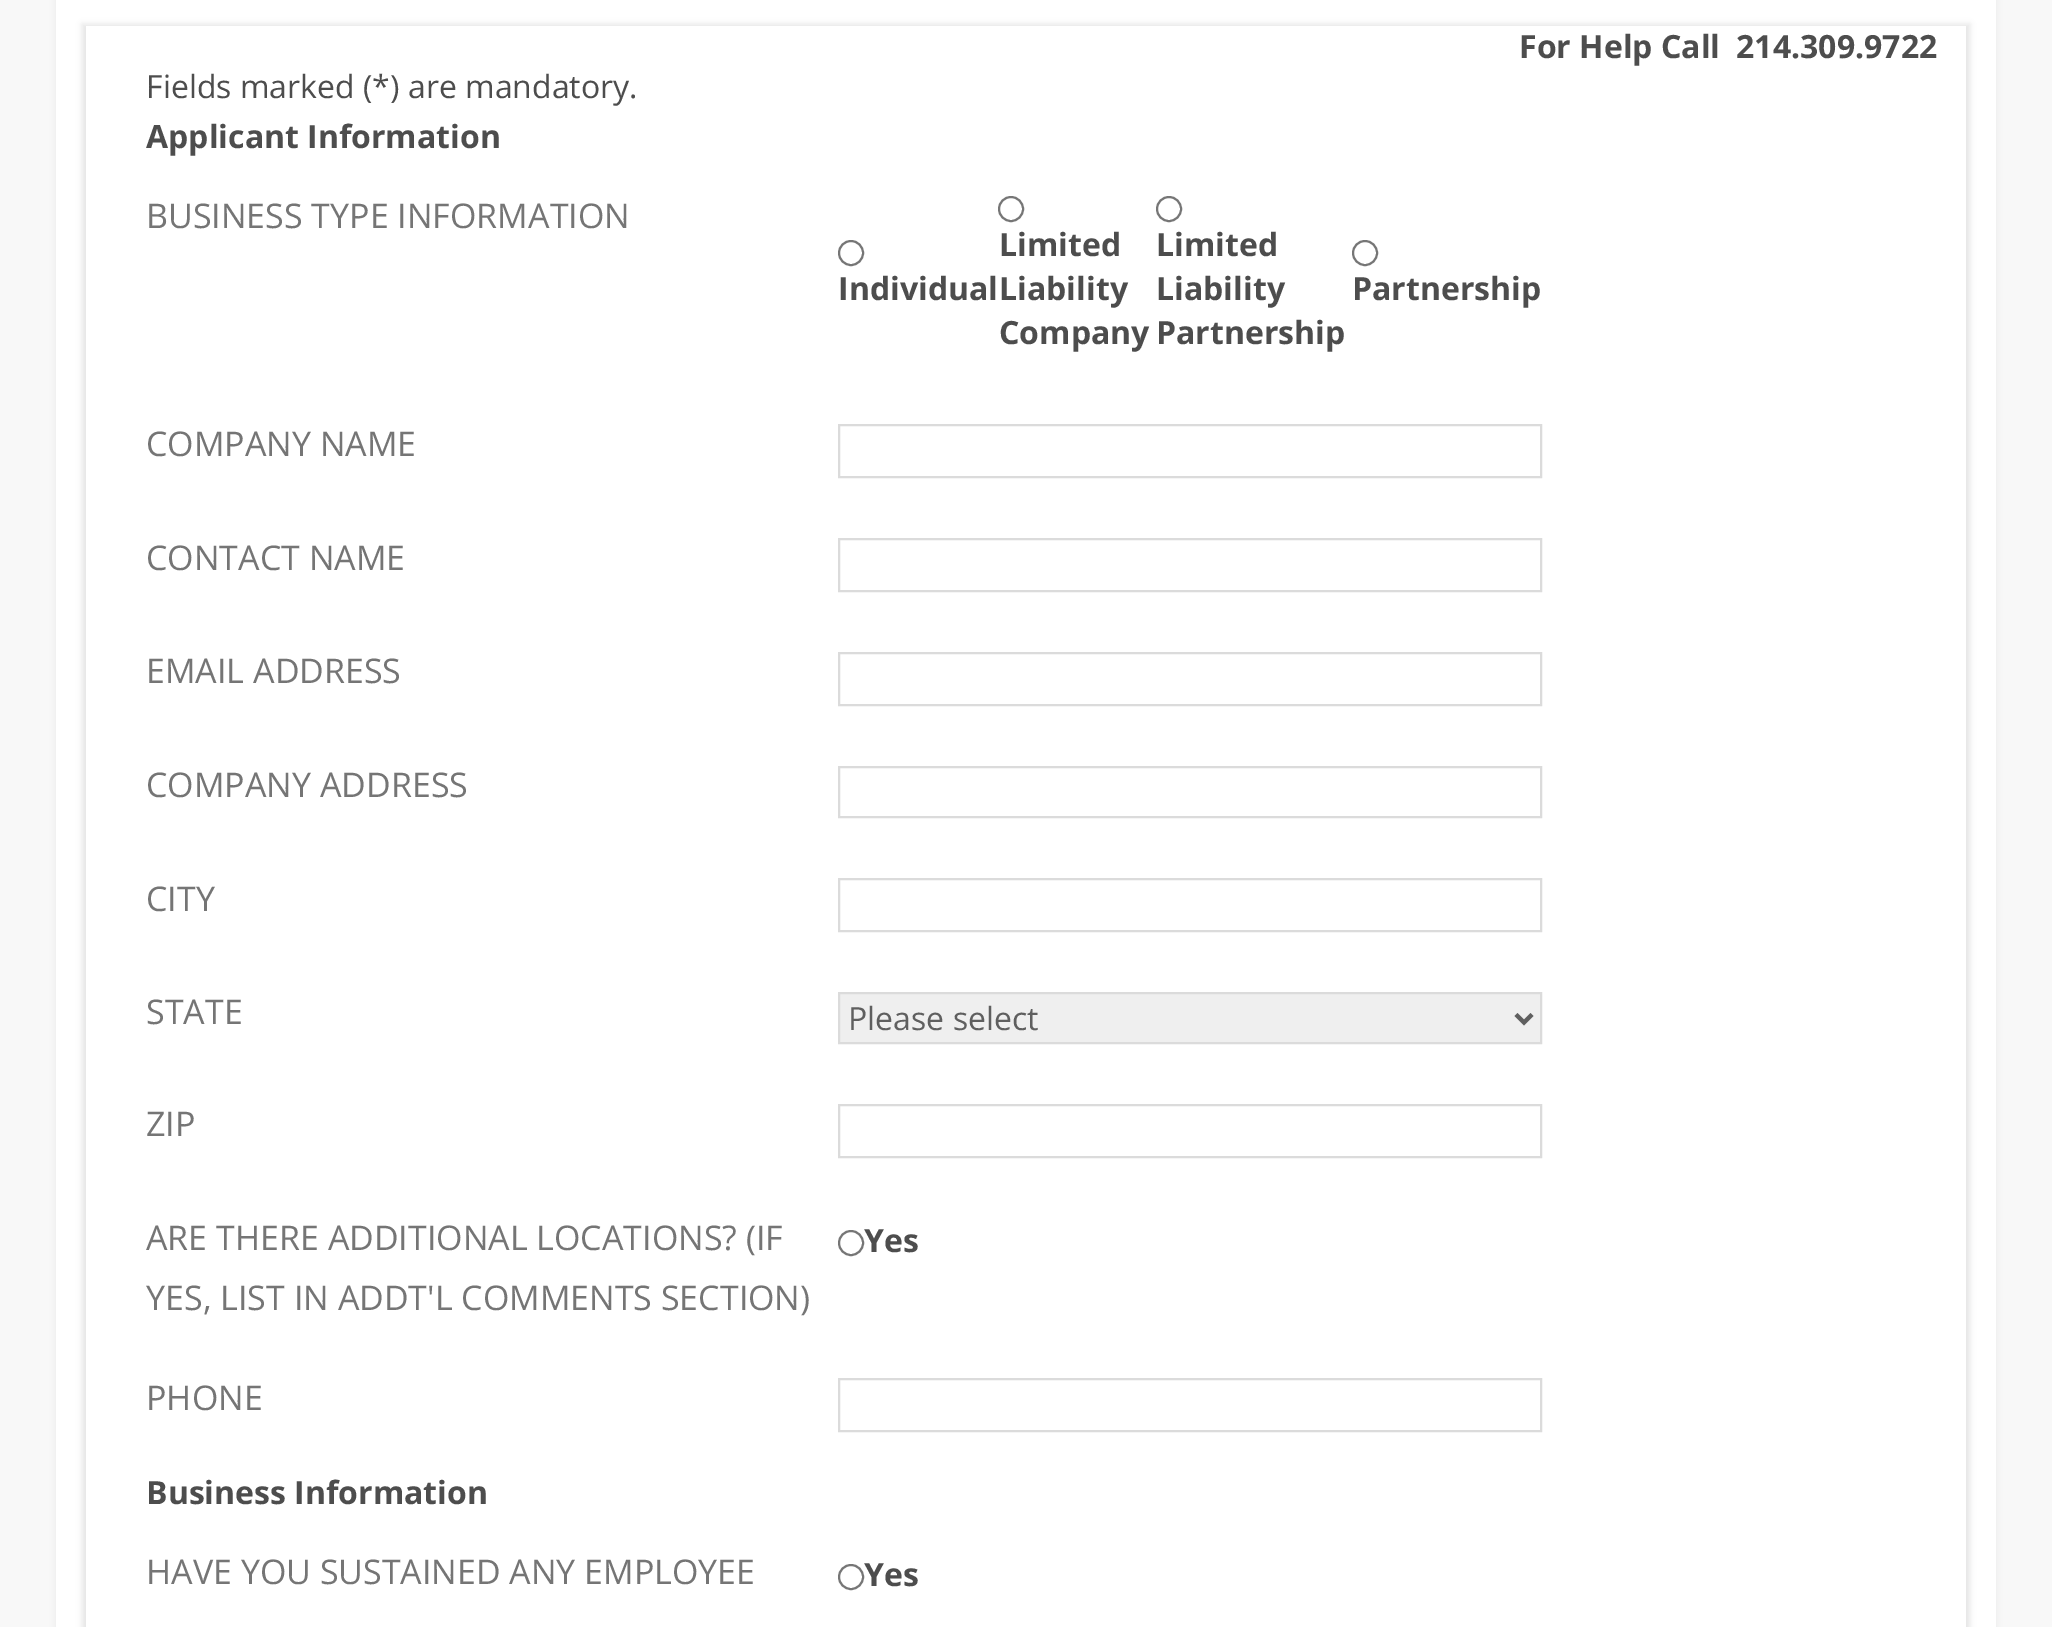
%!PS
<< /PageSize [2052 1627] /PageUsesTransparency true >> setpagedevice
/mt/moveto load def
/li/lineto load def
/cp/closepath load def
/fl/fill load def
/st/stroke load def
/gs/gsave load def
/gr/grestore load def
/lw/setlinewidth load def
/co { dup -16 bitshift 255 div exch dup -8 bitshift 255 and 255 div exch 255 and 255 div setrgbcolor } def
/fn { [ exch dup neg 0 0 3 -1 roll 0 0 ] selectfont } def
/tx { co fn moveto show } def
/bx { co rectfill } def
/al { dup .setfillconstantalpha .setstrokeconstantalpha } def
/ci { newpath 0 360 arc closepath } def
/rr { 5 dict begin { /r /h /w /y /x } { exch def } forall
  x r add y moveto x w add y 2 copy h add r arct x w add y h add x 1 index r arct
  x y h add x y r arct x y 2 copy exch w add exch r arct closepath end } def
/sh { 12 dict begin { /a /b /q /h /w /y /x } { exch def } forall gsave /was 0 def
  9 -2 -9 { dup b mul 4 div /e exch def 1 sub .425 mul 2.718 exch exp 1 add a .99 .min exch div /now exch def
    1 1 now sub 1 was sub div sub al /was now def
    w h .min e 2 mul add 0 gt { x e sub y e sub w e 2 mul add h e 2 mul add
      q e add b .6 mul add w h .min 2 div e add .min 0 .max rr fill } if } for grestore end } def
0 .pushpdf14devicefilter
0 1627 translate 1 -1 scale
4 setmiterlimit
0 0 2052 1627 16#F8F8F8 bx
16#636363 co
56 -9 1940 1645 0 3 .1 sh
56 0 1940 1627 16#FFFFFF bx
gs
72 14 mt 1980 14 li 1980 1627 li 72 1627 li cp 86 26 mt 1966 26 li 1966 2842 li 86 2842 li cp eoclip newpath
16#000000 co
82 24 1888 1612 0 3 .1 sh
gr
16#767676 co
2 lw
851 253 12 ci st
1011 209 12 ci st
1169 209 12 ci st
1365 253 12 ci st
16#DBDBDB co
839 425 702 52 rectstroke
839 539 702 52 rectstroke
839 653 702 52 rectstroke
839 767 702 50 rectstroke
839 879 702 52 rectstroke
16#EFEFEF co
839 993 mt 1541 993 li 1541 1043 li 839 1043 li cp gs fl gr
16#DBDBDB co
st
16#5F5F5F co
4 lw
1516 1014.5 mt 1524 1022.5 li 1532 1014.5 li st
16#DBDBDB co
2 lw
839 1105 702 52 rectstroke
16#767676 co
851 1243 12 ci st
16#DBDBDB co
839 1379 702 52 rectstroke
16#767676 co
851 1577 12 ci st
(For Help Call) 1519 58 /OpenSans-Bold 32 16#4D4D4D tx
(214.309.9722) 1736 58 /OpenSans-Bold 32 16#4D4D4D tx
(Fields marked \(*\) are mandatory.) 146 98 /OpenSans-Regular 32 16#4D4D4D tx
(Applicant Information) 146 148 /OpenSans-Bold 32 16#4D4D4D tx
(BUSINESS TYPE INFORMATION) 146 228 /OpenSans-Regular 34 16#757575 tx
(Individual) 838 300 /OpenSans-Bold 32 16#4D4D4D tx
(Limited) 999 256 /OpenSans-Bold 32 16#4D4D4D tx
(Liability) 999 300 /OpenSans-Bold 32 16#4D4D4D tx
(Company) 999 344 /OpenSans-Bold 32 16#4D4D4D tx
(Limited) 1156 256 /OpenSans-Bold 32 16#4D4D4D tx
(Liability) 1156 300 /OpenSans-Bold 32 16#4D4D4D tx
(Partnership) 1156 344 /OpenSans-Bold 32 16#4D4D4D tx
(Partnership) 1352 300 /OpenSans-Bold 32 16#4D4D4D tx
(COMPANY NAME) 146 456 /OpenSans-Regular 34 16#757575 tx
(CONTACT NAME) 146 570 /OpenSans-Regular 34 16#757575 tx
(EMAIL ADDRESS) 146 683 /OpenSans-Regular 34 16#757575 tx
(COMPANY ADDRESS) 146 797 /OpenSans-Regular 34 16#757575 tx
(CITY) 146 911 /OpenSans-Regular 34 16#757575 tx
(STATE) 146 1024 /OpenSans-Regular 34 16#757575 tx
(Please select) 848 1030 /OpenSans-Regular 32 16#5F5F5F tx
(ZIP) 146 1136 /OpenSans-Regular 34 16#757575 tx
(ARE THERE ADDITIONAL LOCATIONS? \(IF) 146 1250 /OpenSans-Regular 34 16#757575 tx
(YES, LIST IN ADDT'L COMMENTS SECTION\)) 146 1310 /OpenSans-Regular 34 16#757575 tx
(Yes) 864 1252 /OpenSans-Bold 32 16#4D4D4D tx
(PHONE) 146 1410 /OpenSans-Regular 34 16#757575 tx
(Business Information) 146 1504 /OpenSans-Bold 32 16#4D4D4D tx
(HAVE YOU SUSTAINED ANY EMPLOYEE) 146 1584 /OpenSans-Regular 34 16#757575 tx
(Yes) 864 1586 /OpenSans-Bold 32 16#4D4D4D tx
.poppdf14devicefilter showpage
